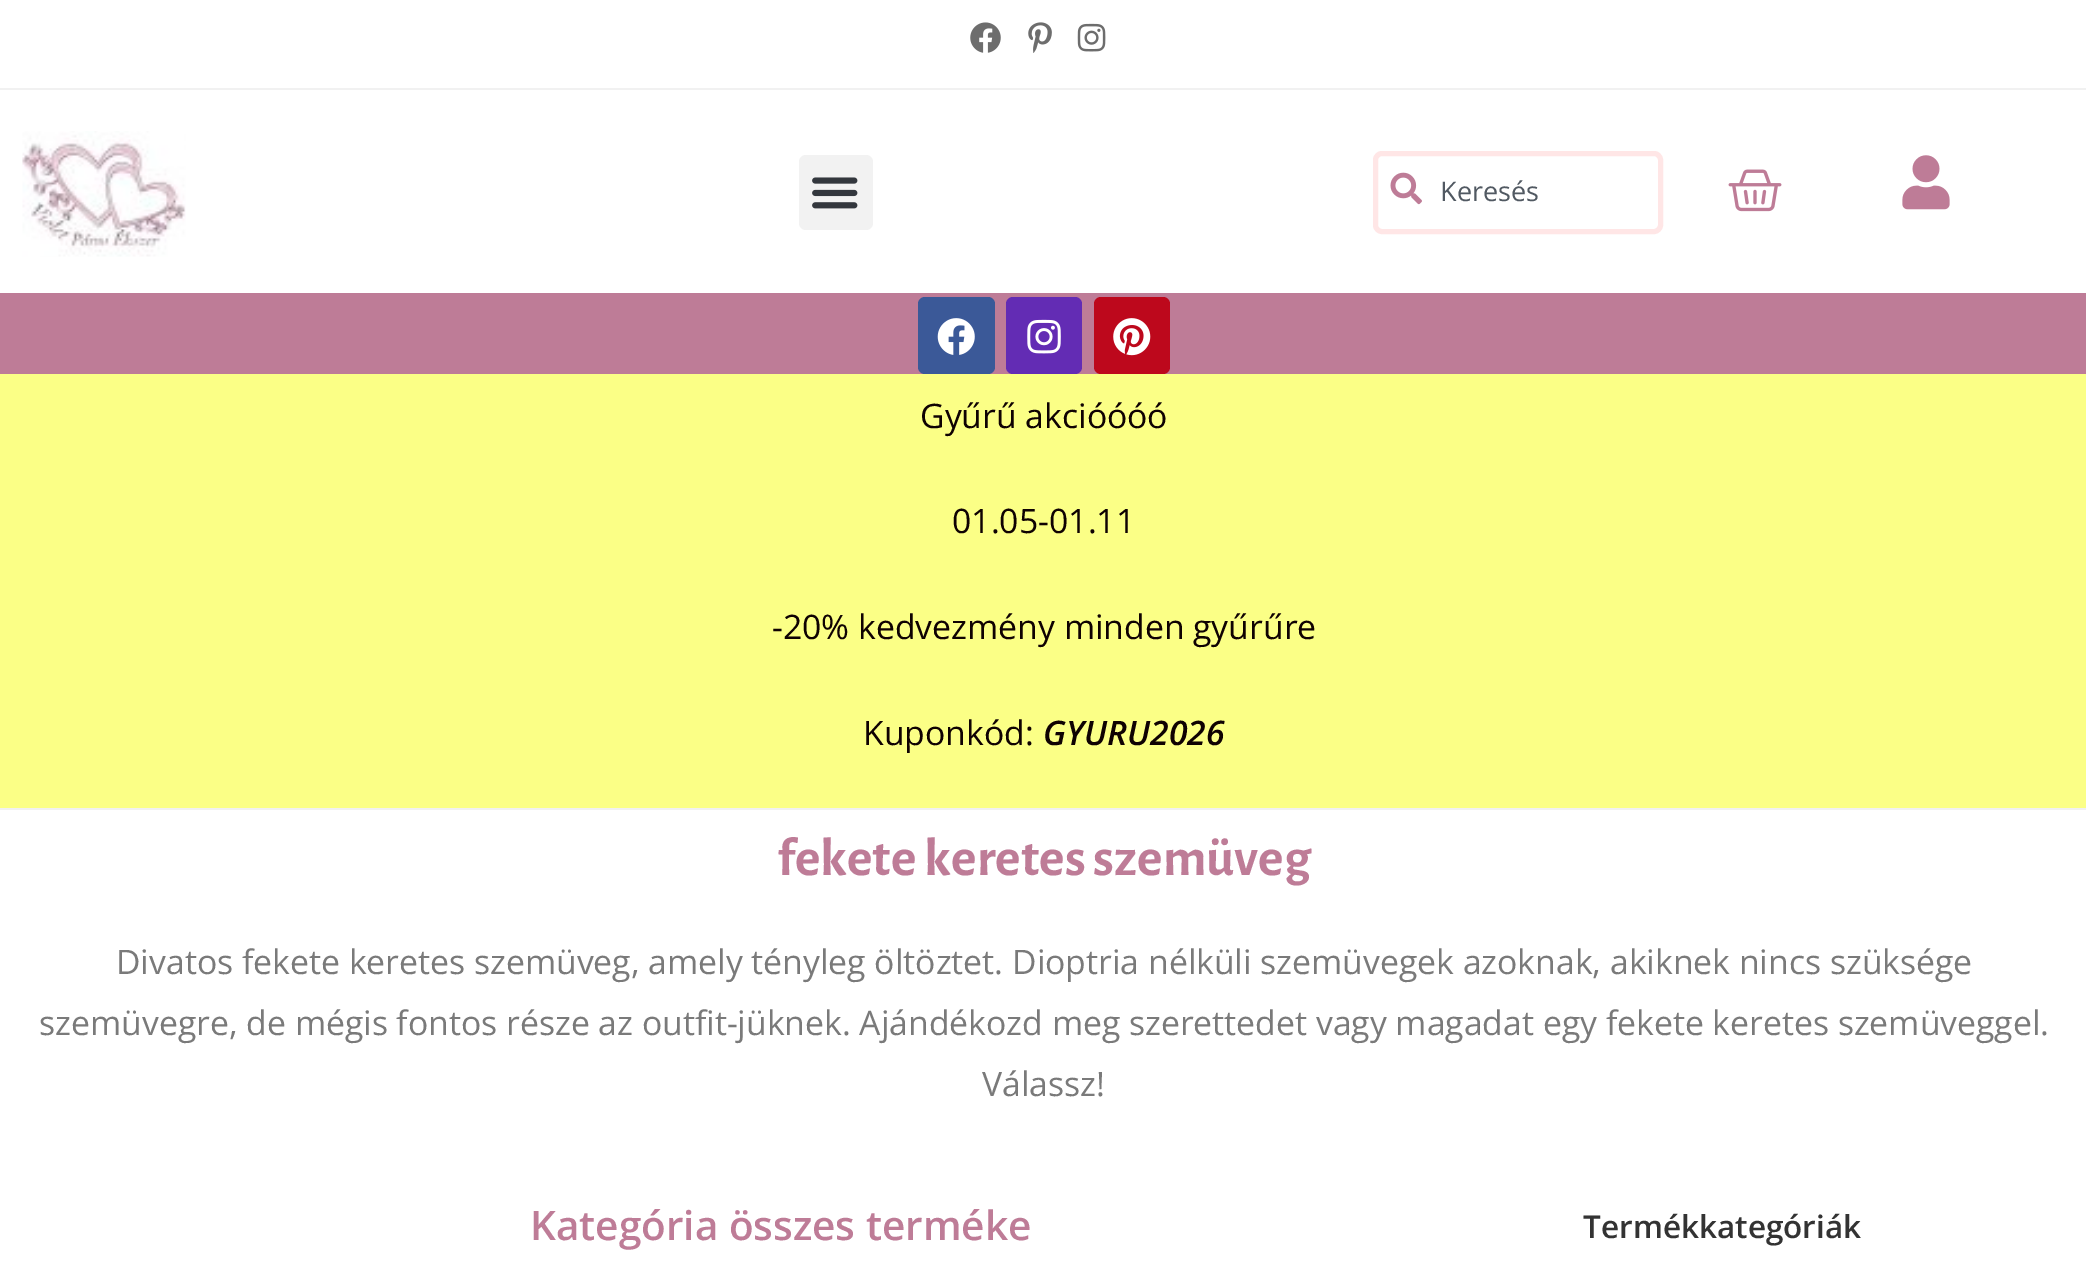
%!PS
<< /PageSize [2086 1270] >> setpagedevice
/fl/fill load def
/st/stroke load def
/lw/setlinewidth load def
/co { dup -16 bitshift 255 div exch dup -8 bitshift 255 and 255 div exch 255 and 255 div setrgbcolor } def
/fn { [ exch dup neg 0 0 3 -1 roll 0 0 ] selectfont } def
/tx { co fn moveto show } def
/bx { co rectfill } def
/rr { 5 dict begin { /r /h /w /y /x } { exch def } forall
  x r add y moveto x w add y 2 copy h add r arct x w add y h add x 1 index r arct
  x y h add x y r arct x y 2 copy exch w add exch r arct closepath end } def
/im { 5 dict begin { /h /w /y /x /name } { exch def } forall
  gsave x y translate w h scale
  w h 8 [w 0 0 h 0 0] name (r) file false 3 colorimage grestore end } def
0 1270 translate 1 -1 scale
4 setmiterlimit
0 0 2086 1270 16#FFFFFF bx
0 88 2086 2 16#F1F1F1 bx
(media/1.raw) 970 22 31 31 im
(media/2.raw) 1028 22 24 31 im
(media/3.raw) 1077 23 29 29 im
0 808 2086 2 16#F1F1F1 bx
(media/4.raw) 22 131 164 126 im
16#F2F2F2 co
799 155 74 75 7 rr fl
(media/5.raw) 812 177 46 32 im
16#FFE6E6 co
5 lw
1375.5 153.5 285 78 6.5 rr st
(media/6.raw) 1390 172 32 33 im
(media/7.raw) 1728 169 54 43 im
(media/8.raw) 1902 155 48 55 im
0 293 2086 81 16#BE7C97 bx
16#3B5998 co
918 297 77 77 7 rr fl
(media/9.raw) 937 318 38 37 im
16#632CB4 co
1006 297 76 77 7 rr fl
(media/10.raw) 1027 319 34 35 im
16#BD081C co
1094 297 76 77 7 rr fl
(media/11.raw) 1113 318 38 38 im
0 374 2086 434 16#FBFF86 bx
(Keresés) 1440 201 /OpenSans-Regular 27 16#515962 tx
(Gyűrű akcióóóó) 920 428 /OpenSans-Regular 33.75 16#0F0202 tx
(01.05-01.11) 952 533 /OpenSans-Regular 33.75 16#0F0202 tx
(-20% kedvezmény minden gyűrűre) 772 639 /OpenSans-Regular 33.75 16#0F0202 tx
(Kuponkód:) 863 745 /OpenSans-Regular 33.75 16#0F0202 tx
(GYURU2026) 1043 745 /OpenSans-SemiBoldItalic 33.75 16#0F0202 tx
(fekete keretes szemüveg) 777 875 /AlegreyaSans-Bold 54 16#BE7C97 tx
(Divatos fekete keretes szemüveg, amely tényleg öltöztet. Dioptria nélküli szemüvegek azoknak, akiknek nincs szüksége) 116 974 /OpenSans-Regular 33.75 16#7A7A7A tx
(szemüvegre, de mégis fontos része az outfit-jüknek. Ajándékozd meg szerettedet vagy magadat egy fekete keretes szemüveggel.) 39 1035 /OpenSans-Regular 33.75 16#7A7A7A tx
(Válassz!) 982 1096 /OpenSans-Regular 33.75 16#7A7A7A tx
(Kategória összes terméke) 530 1240 /OpenSans-SemiBold 40.5 16#BE7C97 tx
(Termékkategóriák) 1583 1238 /OpenSans-SemiBold 31.5 16#333333 tx
showpage
